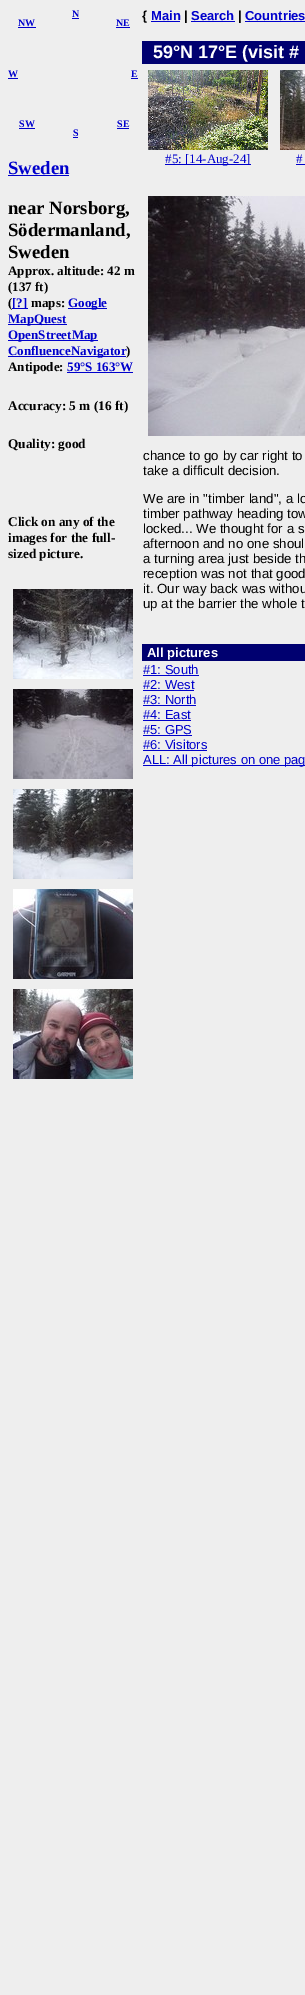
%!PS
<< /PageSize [305 1995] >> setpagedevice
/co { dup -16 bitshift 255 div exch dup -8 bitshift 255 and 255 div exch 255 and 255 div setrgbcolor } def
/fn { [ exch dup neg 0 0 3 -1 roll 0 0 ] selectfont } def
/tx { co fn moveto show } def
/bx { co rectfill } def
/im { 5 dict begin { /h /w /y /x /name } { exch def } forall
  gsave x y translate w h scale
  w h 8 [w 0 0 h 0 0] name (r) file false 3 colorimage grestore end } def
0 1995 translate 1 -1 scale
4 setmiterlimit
0 0 305 1995 16#EEEEEE bx
8 78 10 1 16#0000CC bx
72 18 7 1 16#0000CC bx
18 27 18 1 16#0000CC bx
116 27 14 1 16#0000CC bx
19 128 16 1 16#0000CC bx
117 128 12 1 16#0000CC bx
73 137 5 1 16#0000CC bx
131 78 7 1 16#0000CC bx
8 175 61 1 16#0000CC bx
12 308 16 1 16#0000CC bx
68 308 39 1 16#0000CC bx
8 324 59 1 16#0000CC bx
8 340 90 1 16#0000CC bx
8 356 118 1 16#0000CC bx
67 372 66 1 16#0000CC bx
(media/1.raw) 13 589 120 90 im
(media/2.raw) 13 689 120 90 im
(media/3.raw) 13 789 120 90 im
(media/4.raw) 13 889 120 90 im
(media/5.raw) 13 989 120 90 im
151 21 29 1 16#0000CC bx
191 21 44 1 16#0000CC bx
245 21 60 1 16#0000CC bx
142 41 163 23 16#000070 bx
(media/6.raw) 148 70 120 80 im
165 164 86 1 16#0000CC bx
(media/7.raw) 280 70 25 80 im
296 164 9 1 16#0000CC bx
(media/8.raw) 148 196 157 240 im
142 644 163 17 16#000070 bx
143 675 56 1 16#0000CC bx
143 690 51 1 16#0000CC bx
143 705 53 1 16#0000CC bx
143 720 48 1 16#0000CC bx
143 735 49 1 16#0000CC bx
143 750 64 1 16#0000CC bx
143 765 162 1 16#0000CC bx
(W) 8 77 /LiberationSerif-Bold 10 16#0000CC tx
(N) 72 17 /LiberationSerif-Bold 10 16#0000CC tx
(NW) 18 26 /LiberationSerif-Bold 10 16#0000CC tx
(NE) 116 26 /LiberationSerif-Bold 10 16#0000CC tx
(SW) 19 127 /LiberationSerif-Bold 10 16#0000CC tx
(SE) 117 127 /LiberationSerif-Bold 10 16#0000CC tx
(S) 73 136 /LiberationSerif-Bold 10 16#0000CC tx
(E) 131 77 /LiberationSerif-Bold 10 16#0000CC tx
(Sweden) 8 174 /LiberationSerif-Bold 18.75 16#0000CC tx
(near Norsborg,) 8 214 /LiberationSerif-Bold 18.75 16#000000 tx
(Södermanland,) 8 236 /LiberationSerif-Bold 18.75 16#000000 tx
(Sweden) 8 258 /LiberationSerif-Bold 18.75 16#000000 tx
(Approx. altitude: 42 m) 8 275 /LiberationSerif-Bold 13 16#000000 tx
(\(137 ft\)) 8 291 /LiberationSerif-Bold 13 16#000000 tx
(\() 8 307 /LiberationSerif-Bold 13 16#000000 tx
([?]) 12 307 /LiberationSerif-Bold 13 16#0000CC tx
(maps:) 31 307 /LiberationSerif-Bold 13 16#000000 tx
(Google) 68 307 /LiberationSerif-Bold 13 16#0000CC tx
(MapQuest) 8 323 /LiberationSerif-Bold 13 16#0000CC tx
(OpenStreetMap) 8 339 /LiberationSerif-Bold 13 16#0000CC tx
(ConfluenceNavigator) 8 355 /LiberationSerif-Bold 13 16#0000CC tx
(\)) 126 355 /LiberationSerif-Bold 13 16#000000 tx
(Antipode:) 8 371 /LiberationSerif-Bold 13 16#000000 tx
(59°S 163°W) 67 371 /LiberationSerif-Bold 13 16#0000CC tx
(Accuracy: 5 m \(16 ft\)) 8 410 /LiberationSerif-Bold 13.25 16#000000 tx
(Quality: good) 8 448 /LiberationSerif-Bold 13.25 16#000000 tx
(Click on any of the) 8 526 /LiberationSerif-Bold 13.25 16#000000 tx
(images for the full-) 8 542 /LiberationSerif-Bold 13.25 16#000000 tx
(sized picture.) 8 558 /LiberationSerif-Bold 13.25 16#000000 tx
({) 142 20 /LiberationSans-Bold 13 16#000000 tx
(Main) 151 20 /LiberationSans-Bold 13 16#0000CC tx
(|) 184 20 /LiberationSans-Bold 13 16#000000 tx
(Search) 191 20 /LiberationSans-Bold 13 16#0000CC tx
(|) 238 20 /LiberationSans-Bold 13 16#000000 tx
(Countries) 245 20 /LiberationSans-Bold 13 16#0000CC tx
(59°N 17°E \(visit #) 153 58 /LiberationSans-Bold 18 16#FFFFFF tx
(#5: [14-Aug-24]) 165 163 /LiberationSerif-Regular 13 16#0000CC tx
(#) 296 163 /LiberationSerif-Regular 13 16#0000CC tx
(chance to go by car right to) 143 460 /LiberationSans-Regular 13.25 16#000000 tx
(take a difficult decision.) 143 475 /LiberationSans-Regular 13.25 16#000000 tx
(We are in "timber land", a lo) 143 503 /LiberationSans-Regular 13.25 16#000000 tx
(timber pathway heading tow) 143 518 /LiberationSans-Regular 13.25 16#000000 tx
(locked... We thought for a s) 143 533 /LiberationSans-Regular 13.25 16#000000 tx
(afternoon and no one shoul) 143 548 /LiberationSans-Regular 13.25 16#000000 tx
(a turning area just beside th) 143 563 /LiberationSans-Regular 13.25 16#000000 tx
(reception was not that good) 143 578 /LiberationSans-Regular 13.25 16#000000 tx
(it. Our way back was withou) 143 593 /LiberationSans-Regular 13.25 16#000000 tx
(up at the barrier the whole t) 143 608 /LiberationSans-Regular 13.25 16#000000 tx
(All pictures) 147 657 /LiberationSans-Bold 13 16#FFFFFF tx
(#1: South) 143 674 /LiberationSans-Regular 13 16#0000CC tx
(#2: West) 143 689 /LiberationSans-Regular 13 16#0000CC tx
(#3: North) 143 704 /LiberationSans-Regular 13 16#0000CC tx
(#4: East) 143 719 /LiberationSans-Regular 13 16#0000CC tx
(#5: GPS) 143 734 /LiberationSans-Regular 13 16#0000CC tx
(#6: Visitors) 143 749 /LiberationSans-Regular 13 16#0000CC tx
(ALL: All pictures on one pag) 143 764 /LiberationSans-Regular 13 16#0000CC tx
showpage
